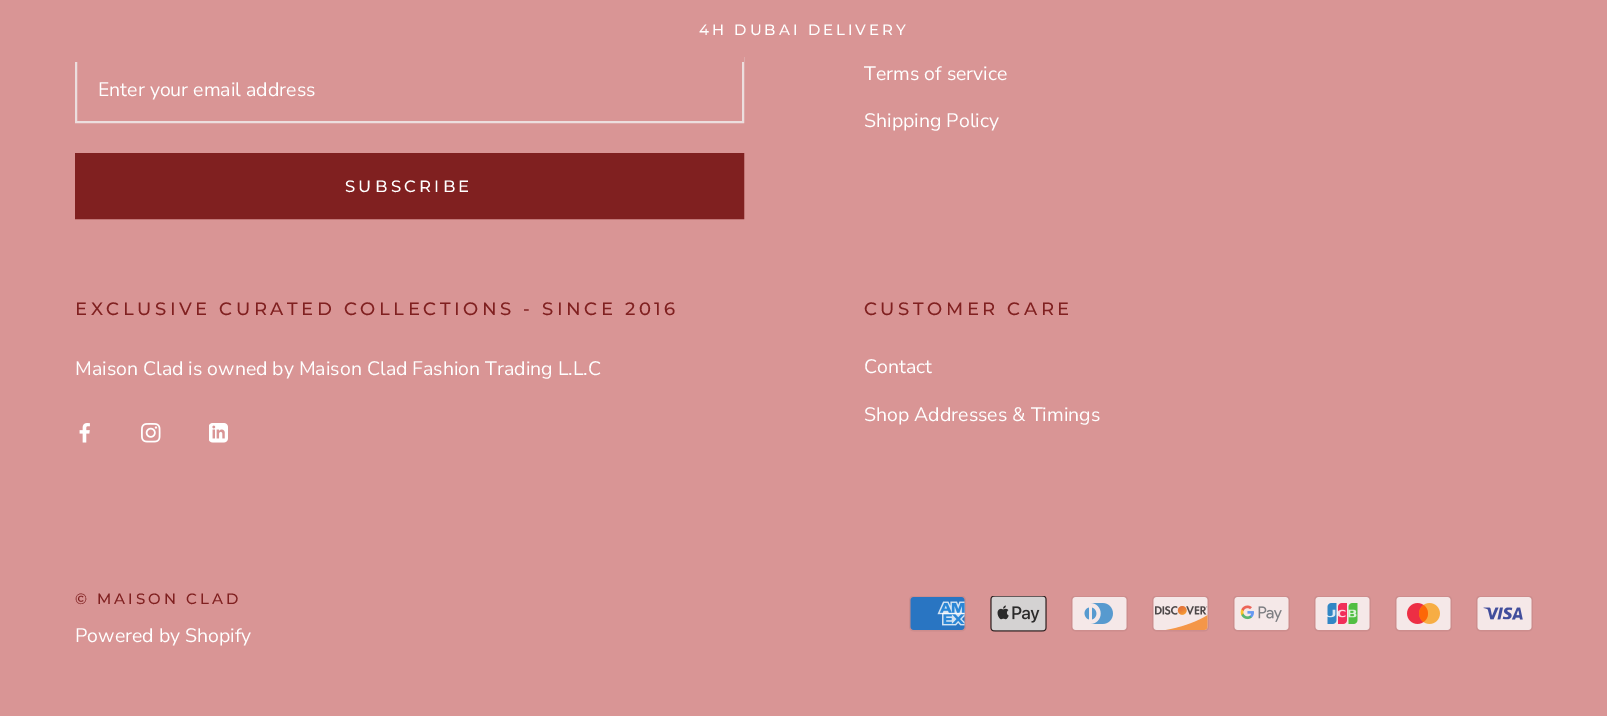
%!PS
<< /PageSize [1607 716] >> setpagedevice
/mt/moveto load def
/lw/setlinewidth load def
/co { dup -16 bitshift 255 div exch dup -8 bitshift 255 and 255 div exch 255 and 255 div setrgbcolor } def
/fn { [ exch dup neg 0 0 3 -1 roll 0 0 ] selectfont } def
/tx { co fn moveto show } def
/bx { co rectfill } def
/im { 5 dict begin { /h /w /y /x /name } { exch def } forall
  gsave x y translate w h scale
  w h 8 [w 0 0 h 0 0] name (r) file false 3 colorimage grestore end } def
0 716 translate 1 -1 scale
4 setmiterlimit
0 0 1607 716 16#D99595 bx
16#ECDEDE co
2 lw
76 58 667 64 rectstroke
75 57 669 5 16#D99595 bx
16#802020 co
76 154 667 64 rectstroke
77 155 665 62 16#802020 bx
(media/1.raw) 79 423 11 20 im
(media/2.raw) 141 423 20 20 im
(media/3.raw) 209 423 19 20 im
(media/4.raw) 909 596 57 36 im
(media/5.raw) 990 596 57 36 im
(media/6.raw) 1071 596 57 36 im
(media/7.raw) 1152 596 57 36 im
(media/8.raw) 1233 596 57 36 im
(media/9.raw) 1314 596 57 36 im
(media/10.raw) 1395 596 57 36 im
(media/11.raw) 1476 596 57 36 im
/Montserrat-Medium 15 fn
16#FFFFFF co
699 35 mt 3 0 (4H DUBAI DELIVERY) ashow
(Enter your email address) 98 96 /NunitoSans-Regular 19.5 16#FFFFFF tx
/Montserrat-Medium 16.5 fn
345 192 mt 3.25 0 (SUBSCRIBE) ashow
(Terms of service) 864 80 /NunitoSans-Regular 19.5 16#FFFFFF tx
(Shipping Policy) 864 127 /NunitoSans-Regular 19.5 16#FFFFFF tx
/Montserrat-Medium 18 fn
16#802020 co
75 315 mt 3.6 0 (EXCLUSIVE CURATED COLLECTIONS - SINCE 2016) ashow
(Maison Clad is owned by Maison Clad Fashion Trading L.L.C) 75 375 /NunitoSans-Regular 19.5 16#FFFFFF tx
/Montserrat-Medium 18 fn
16#802020 co
864 315 mt 3.6 0 (CUSTOMER CARE) ashow
(Contact) 864 373 /NunitoSans-Regular 19.5 16#FFFFFF tx
(Shop Addresses & Timings) 864 421 /NunitoSans-Regular 19.5 16#FFFFFF tx
/Montserrat-Medium 15 fn
16#802020 co
75 604 mt 3 0 (© MAISON CLAD) ashow
(Powered by Shopify) 75 642 /NunitoSans-Regular 19.5 16#FFFFFF tx
showpage
